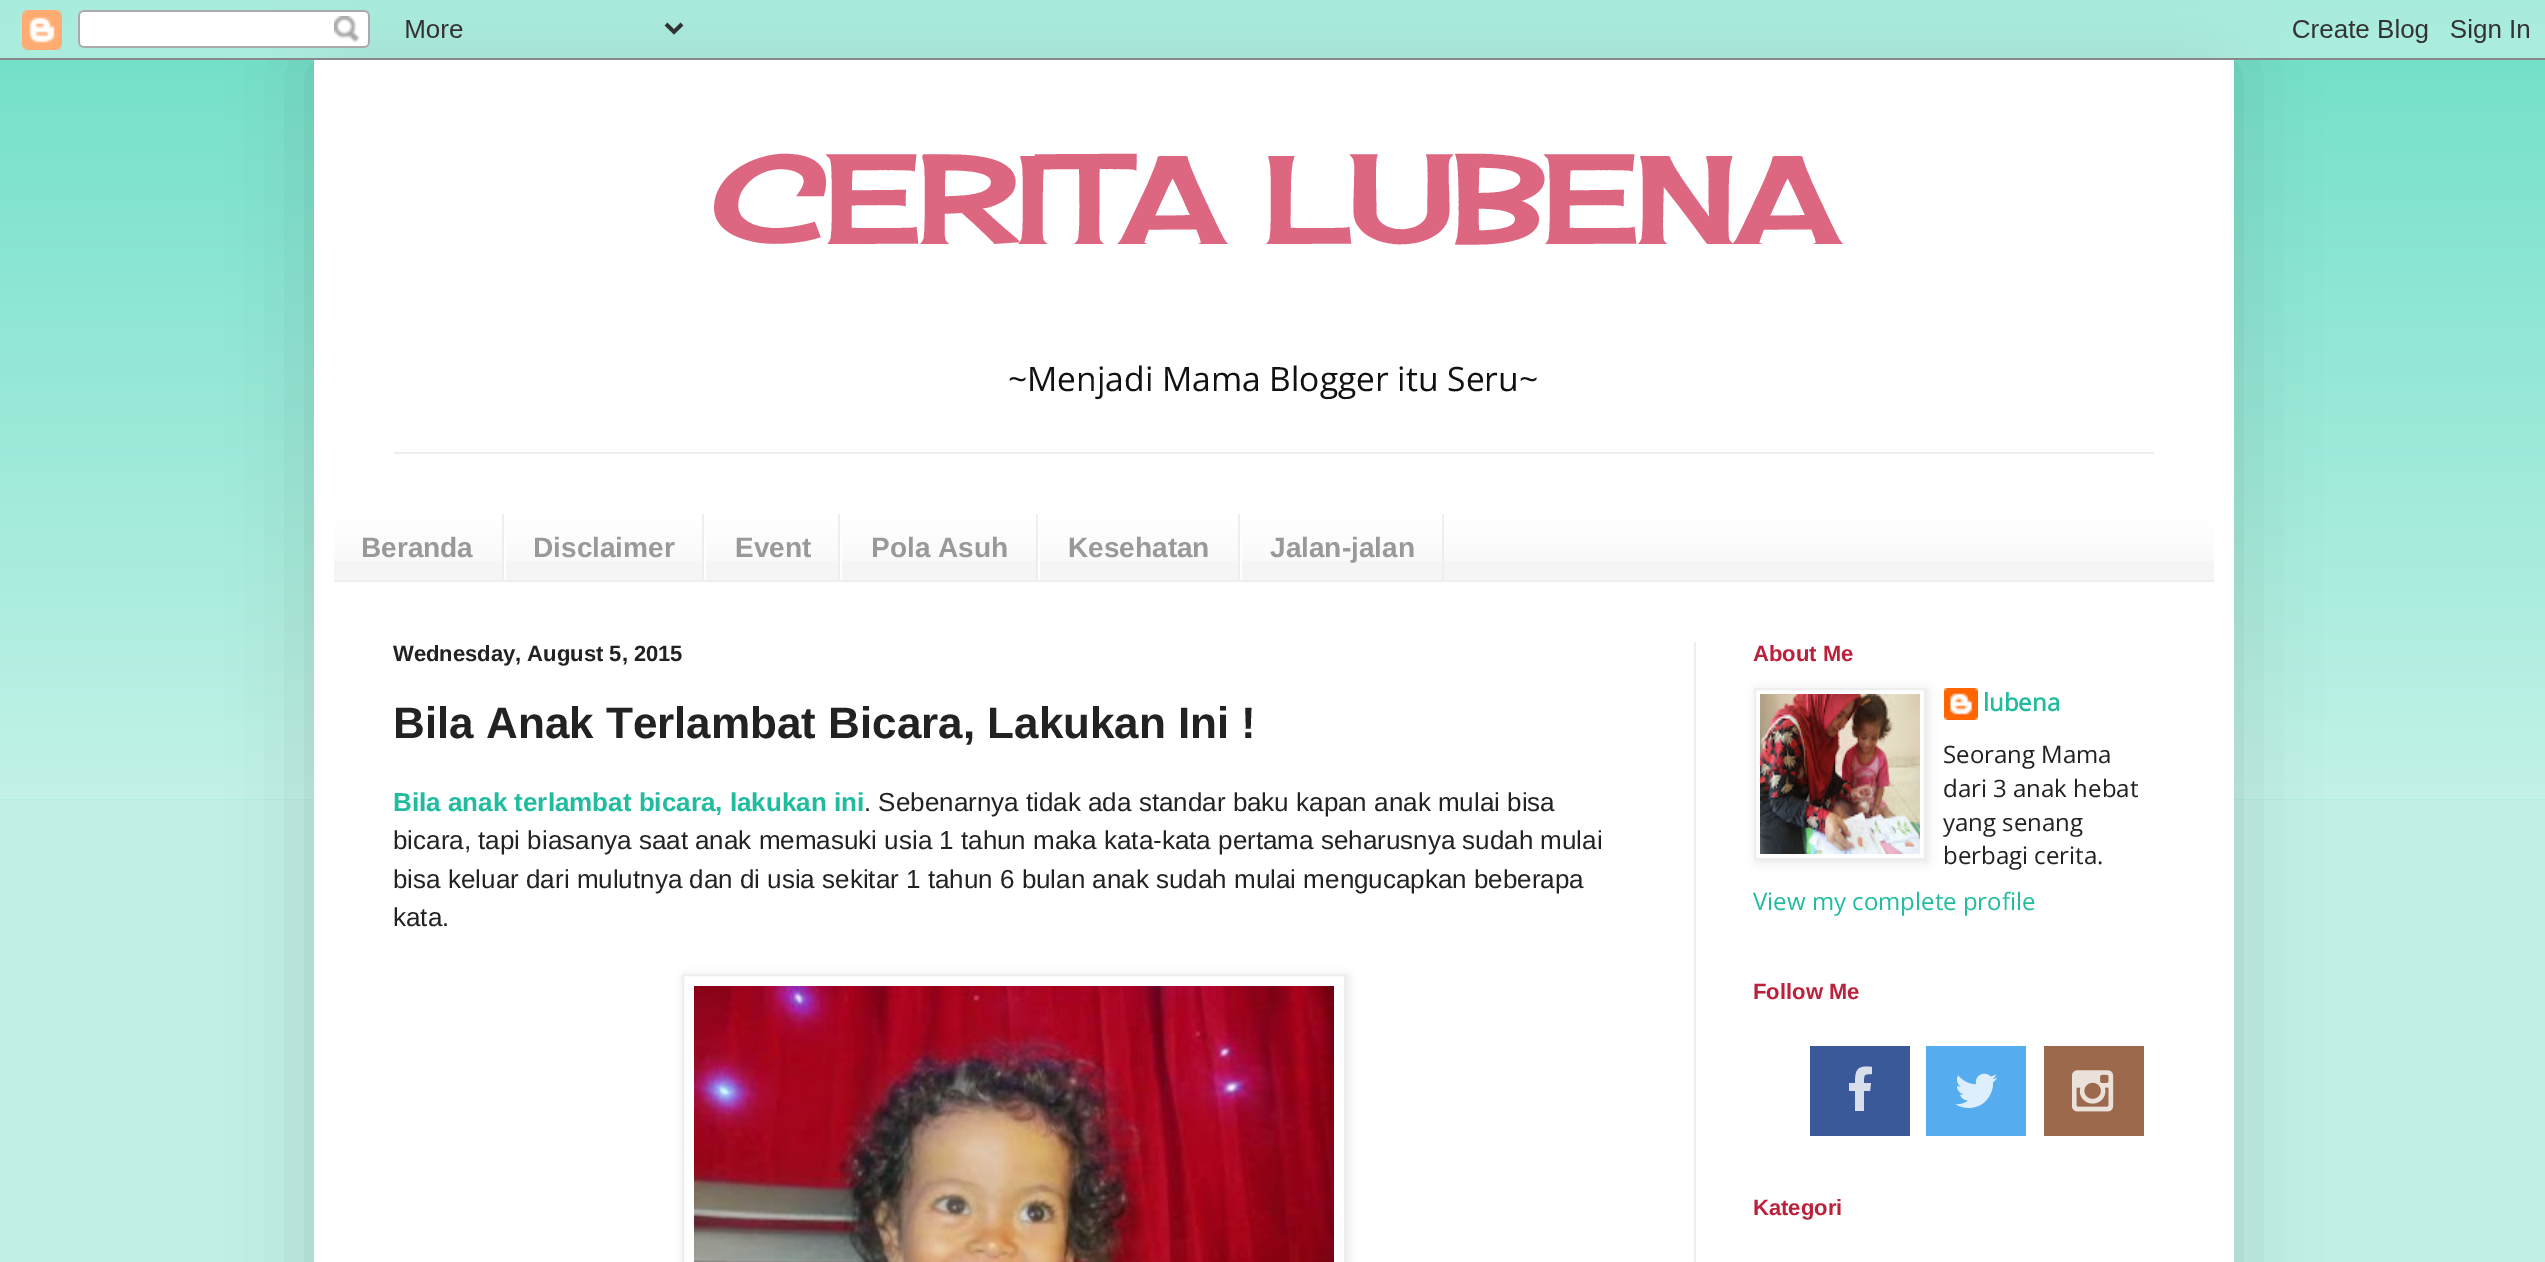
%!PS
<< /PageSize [2545 1262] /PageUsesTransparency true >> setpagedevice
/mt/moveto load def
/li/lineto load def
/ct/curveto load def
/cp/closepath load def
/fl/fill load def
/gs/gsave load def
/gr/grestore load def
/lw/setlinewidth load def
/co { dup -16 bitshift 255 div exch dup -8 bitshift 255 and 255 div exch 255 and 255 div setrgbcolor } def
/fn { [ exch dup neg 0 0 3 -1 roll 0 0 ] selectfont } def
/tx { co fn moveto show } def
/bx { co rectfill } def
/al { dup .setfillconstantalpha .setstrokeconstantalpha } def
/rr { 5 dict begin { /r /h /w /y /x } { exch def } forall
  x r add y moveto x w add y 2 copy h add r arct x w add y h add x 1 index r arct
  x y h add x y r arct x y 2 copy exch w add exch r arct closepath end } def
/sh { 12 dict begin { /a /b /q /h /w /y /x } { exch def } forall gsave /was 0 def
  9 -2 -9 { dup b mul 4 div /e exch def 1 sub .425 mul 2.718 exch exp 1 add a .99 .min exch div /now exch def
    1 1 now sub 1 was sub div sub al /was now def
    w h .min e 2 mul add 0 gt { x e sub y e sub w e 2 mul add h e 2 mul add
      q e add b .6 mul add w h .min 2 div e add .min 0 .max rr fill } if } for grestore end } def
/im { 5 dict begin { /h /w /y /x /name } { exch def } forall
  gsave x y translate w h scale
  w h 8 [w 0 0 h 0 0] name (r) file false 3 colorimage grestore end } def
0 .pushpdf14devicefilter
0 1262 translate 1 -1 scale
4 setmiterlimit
0 0 2545 1262 16#C1EFE6 bx
0 0 2545 800 16#66DDC3 bx
(media/1.raw) 0 0 2545 800 im
16#000000 co
314 60 1920 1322 0 40 .15 sh
(media/2.raw) 0 0 2545 60 im
314 60 1920 1202 16#FFFFFF bx
394 452 1760 2 16#EEEEEE bx
334 514 1880 66 16#F5F5F5 bx
(media/3.raw) 334 514 1880 47 im
334 580 1880 2 16#EEEEEE bx
502 514 2 66 16#EEEEEE bx
702 514 2 66 16#EEEEEE bx
504 536 2 44 16#FFFFFF bx
838 514 2 66 16#EEEEEE bx
704 536 2 44 16#FFFFFF bx
1036 514 2 66 16#EEEEEE bx
840 536 2 44 16#FFFFFF bx
1238 514 2 66 16#EEEEEE bx
1038 536 2 44 16#FFFFFF bx
1442 514 2 66 16#EEEEEE bx
1240 536 2 44 16#FFFFFF bx
1694 642 2 620 16#EEEEEE bx
gs
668 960 mt 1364 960 li 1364 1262 li 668 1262 li cp 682 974 mt 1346 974 li 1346 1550 li 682 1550 li cp eoclip newpath
16#000000 co
684 976 664 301 0 5 .1 sh
gr
2 lw
683 975 662 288 rectstroke
(media/4.raw) 694 986 640 276 im
gs
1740 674 mt 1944 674 li 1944 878 li 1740 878 li cp 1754 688 mt 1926 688 li 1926 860 li 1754 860 li cp eoclip newpath
16#000000 co
1756 690 172 172 0 5 .1 sh
gr
1755 689 170 170 rectstroke
(media/5.raw) 1760 694 160 160 im
(media/6.raw) 1944 688 34 32 im
1810 1046 100 90 16#3B5998 bx
16#D8DEEA co
1872 1067 mt 1872 1074 li 1863 1074 1864 1075 1864 1083 ct 1871 1083 li 1870 1091 li 1864 1091 li 1864 1111 li 1855 1111 li 1855 1091 li 1849 1091 li 1849 1083 li 1855 1083 li 1855 1070 1857 1065 1872 1067 ct cp fl
1926 1046 100 90 16#55ACEE bx
(media/7.raw) 1955 1073 43 35 im
2044 1046 100 90 16#9C694C bx
(media/8.raw) 2072 1070 42 42 im
(CERITA LUBENA) 711 244 /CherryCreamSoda-Bold 120 16#DD6680 tx
(~Menjadi Mama Blogger itu Seru~) 1008 391 /OpenSans-Regular 33.6 16#111111 tx
(Beranda) 361 557 /LiberationSans-Bold 28 16#999999 tx
(Disclaimer) 533 557 /LiberationSans-Bold 28 16#999999 tx
(Event) 735 557 /LiberationSans-Bold 28 16#999999 tx
(Pola Asuh) 871 557 /LiberationSans-Bold 28 16#999999 tx
(Kesehatan) 1068 557 /LiberationSans-Bold 28 16#999999 tx
(Jalan-jalan) 1270 557 /LiberationSans-Bold 28 16#999999 tx
(Wednesday, August 5, 2015) 393 661 /LiberationSans-Bold 22 16#222222 tx
(Bila Anak Terlambat Bicara, Lakukan Ini !) 393 738 /LiberationSans-Bold 44 16#222222 tx
(Bila anak terlambat bicara, lakukan ini) 393 811 /LiberationSans-Bold 26 16#21BBA0 tx
(. Sebenarnya tidak ada standar baku kapan anak mulai bisa) 864 811 /LiberationSans-Regular 26 16#222222 tx
(bicara, tapi biasanya saat anak memasuki usia 1 tahun maka kata-kata pertama seharusnya sudah mulai) 393 849 /LiberationSans-Regular 26 16#222222 tx
(bisa keluar dari mulutnya dan di usia sekitar 1 tahun 6 bulan anak sudah mulai mengucapkan beberapa) 393 888 /LiberationSans-Regular 26 16#222222 tx
(kata.) 393 926 /LiberationSans-Regular 26 16#222222 tx
(About Me) 1753 661 /LiberationSans-Bold 22 16#BB213B tx
(lubena) 1983 711 /OpenSans-Bold 24 16#21BBA0 tx
(Seorang Mama) 1943 763 /OpenSans-Regular 24 16#222222 tx
(dari 3 anak hebat) 1943 797 /OpenSans-Regular 24 16#222222 tx
(yang senang) 1943 831 /OpenSans-Regular 24 16#222222 tx
(berbagi cerita.) 1943 864 /OpenSans-Regular 24 16#222222 tx
(View my complete profile) 1753 910 /OpenSans-Regular 24 16#21BBA0 tx
(Follow Me) 1753 999 /LiberationSans-Bold 22 16#BB213B tx
(Kategori) 1753 1215 /LiberationSans-Bold 22 16#BB213B tx
.poppdf14devicefilter showpage
